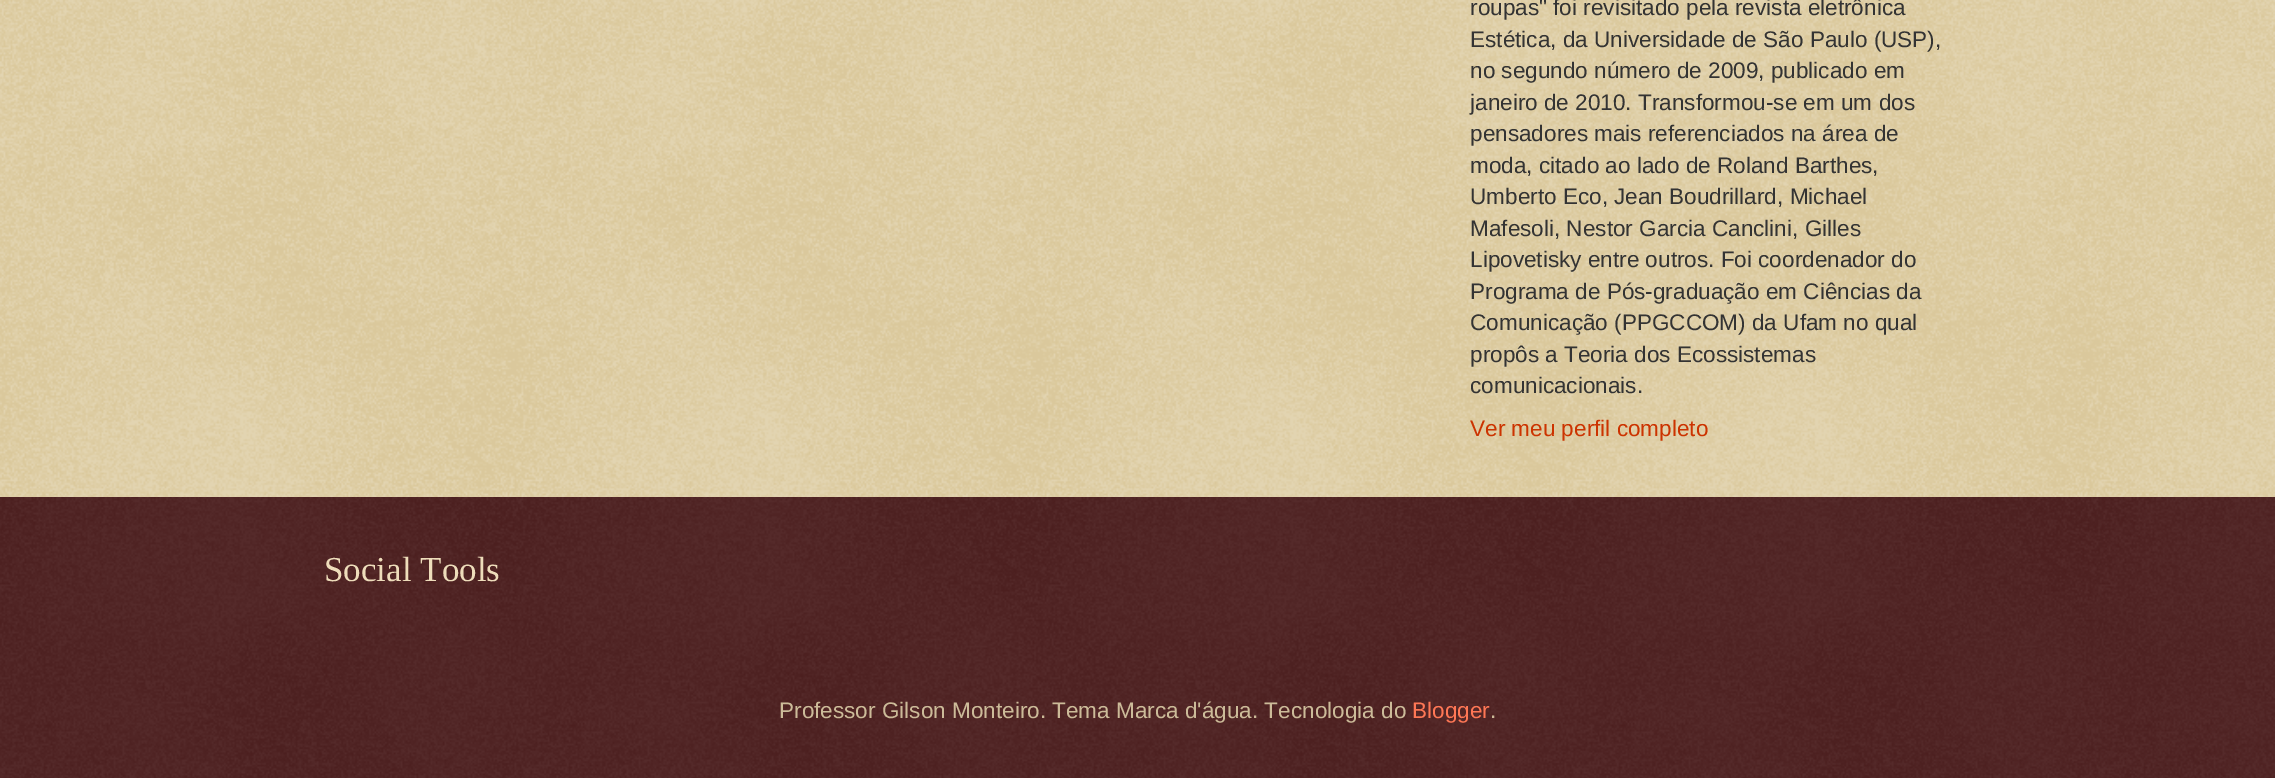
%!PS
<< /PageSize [2275 778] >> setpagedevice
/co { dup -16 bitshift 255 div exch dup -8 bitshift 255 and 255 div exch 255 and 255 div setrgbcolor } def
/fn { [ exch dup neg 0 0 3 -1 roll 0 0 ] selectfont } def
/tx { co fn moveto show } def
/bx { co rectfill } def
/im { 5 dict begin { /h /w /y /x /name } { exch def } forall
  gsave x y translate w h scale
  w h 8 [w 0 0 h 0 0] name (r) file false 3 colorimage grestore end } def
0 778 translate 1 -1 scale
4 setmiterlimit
0 0 2275 778 16#C0A154 bx
(media/1.raw) 0 0 2275 497 im
0 497 2275 281 16#330000 bx
(media/2.raw) 0 497 2275 281 im
(roupas" foi revisitado pela revista eletrônica) 1470 15 /LiberationSans-Regular 22.55 16#333333 tx
(Estética, da Universidade de São Paulo \(USP\),) 1470 47 /LiberationSans-Regular 22.55 16#333333 tx
(no segundo número de 2009, publicado em) 1470 78 /LiberationSans-Regular 22.55 16#333333 tx
(janeiro de 2010. Transformou-se em um dos) 1470 110 /LiberationSans-Regular 22.55 16#333333 tx
(pensadores mais referenciados na área de) 1470 141 /LiberationSans-Regular 22.55 16#333333 tx
(moda, citado ao lado de Roland Barthes,) 1470 173 /LiberationSans-Regular 22.55 16#333333 tx
(Umberto Eco, Jean Boudrillard, Michael) 1470 204 /LiberationSans-Regular 22.55 16#333333 tx
(Mafesoli, Nestor Garcia Canclini, Gilles) 1470 236 /LiberationSans-Regular 22.55 16#333333 tx
(Lipovetisky entre outros. Foi coordenador do) 1470 267 /LiberationSans-Regular 22.55 16#333333 tx
(Programa de Pós-graduação em Ciências da) 1470 299 /LiberationSans-Regular 22.55 16#333333 tx
(Comunicação \(PPGCCOM\) da Ufam no qual) 1470 330 /LiberationSans-Regular 22.55 16#333333 tx
(propôs a Teoria dos Ecossistemas) 1470 362 /LiberationSans-Regular 22.55 16#333333 tx
(comunicacionais.) 1470 393 /LiberationSans-Regular 22.55 16#333333 tx
(Ver meu perfil completo) 1470 436 /LiberationSans-Regular 22.55 16#CC3300 tx
(Social Tools) 324 581 /LiberationSerif-Regular 35 16#EEDDBB tx
(Professor Gilson Monteiro. Tema Marca d'água. Tecnologia do) 779 718 /LiberationSans-Regular 22.55 16#CCBB99 tx
(Blogger) 1412 718 /LiberationSans-Regular 22.55 16#FF7755 tx
(.) 1490 718 /LiberationSans-Regular 22.55 16#CCBB99 tx
showpage
